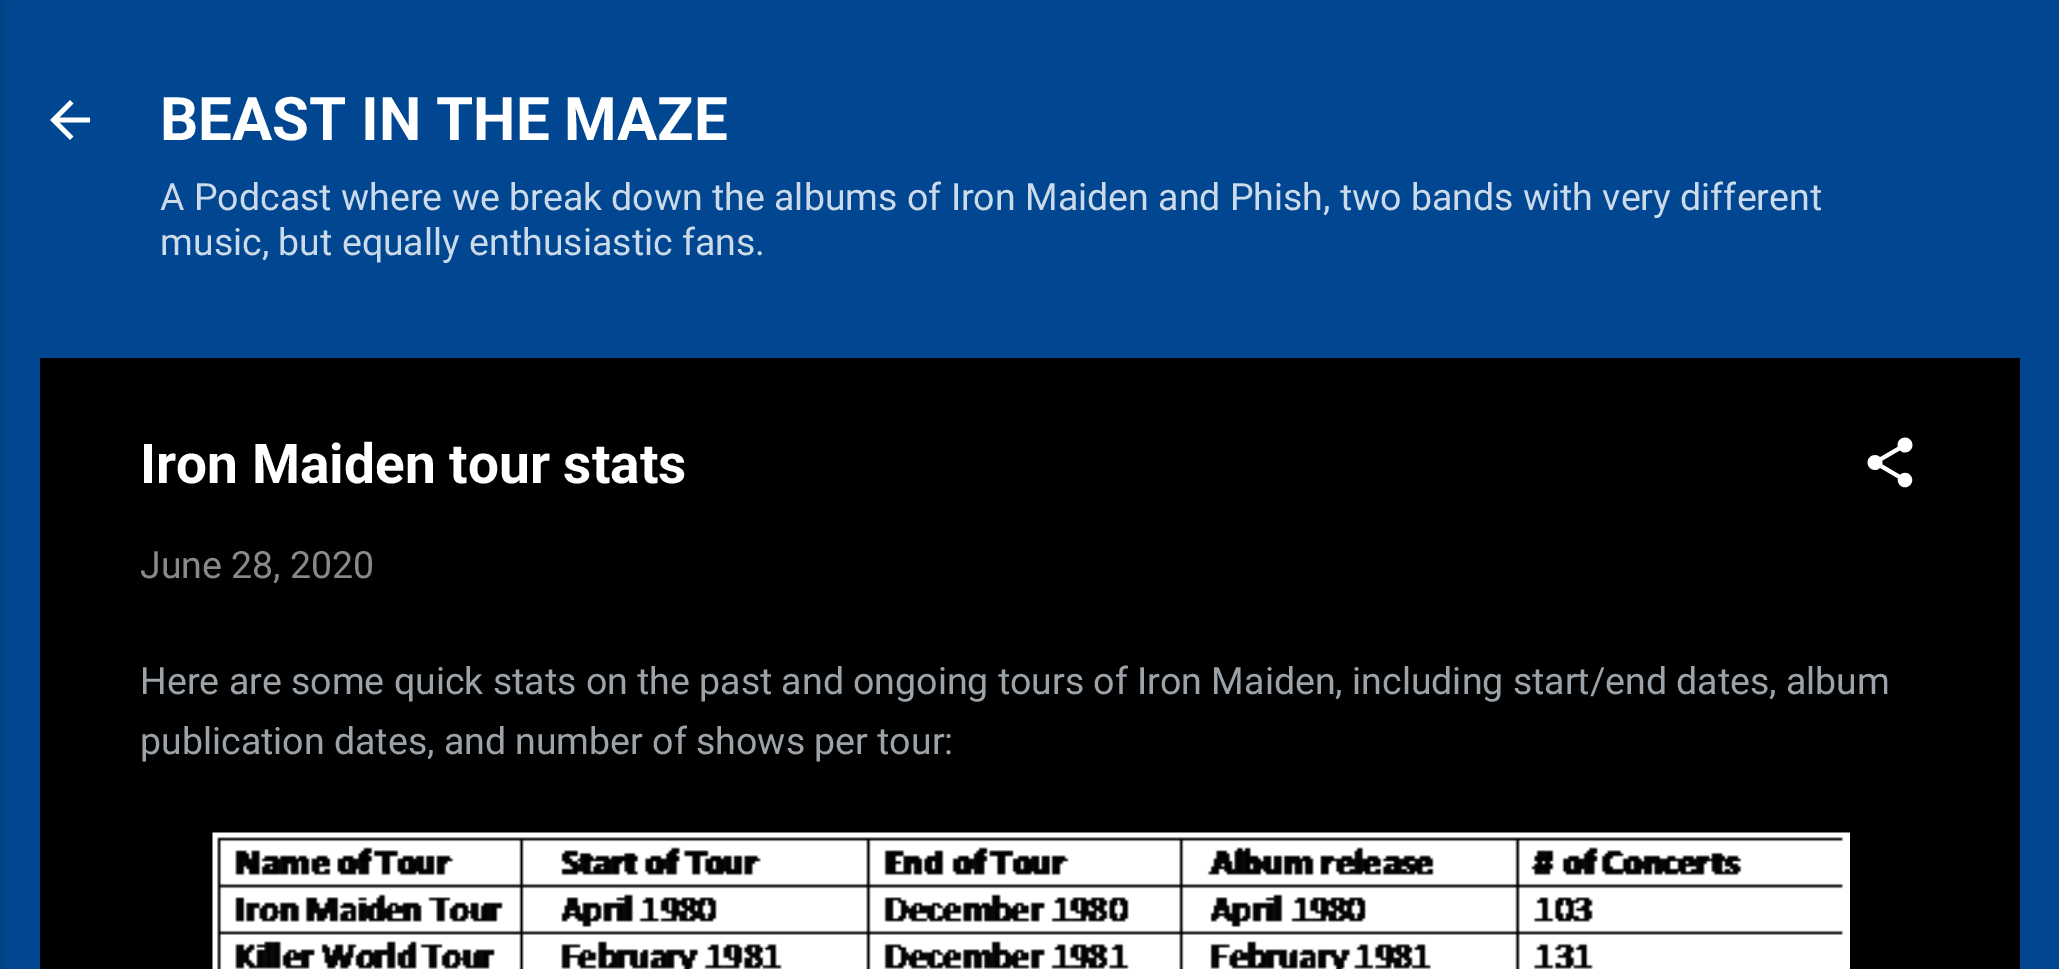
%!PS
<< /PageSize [2059 969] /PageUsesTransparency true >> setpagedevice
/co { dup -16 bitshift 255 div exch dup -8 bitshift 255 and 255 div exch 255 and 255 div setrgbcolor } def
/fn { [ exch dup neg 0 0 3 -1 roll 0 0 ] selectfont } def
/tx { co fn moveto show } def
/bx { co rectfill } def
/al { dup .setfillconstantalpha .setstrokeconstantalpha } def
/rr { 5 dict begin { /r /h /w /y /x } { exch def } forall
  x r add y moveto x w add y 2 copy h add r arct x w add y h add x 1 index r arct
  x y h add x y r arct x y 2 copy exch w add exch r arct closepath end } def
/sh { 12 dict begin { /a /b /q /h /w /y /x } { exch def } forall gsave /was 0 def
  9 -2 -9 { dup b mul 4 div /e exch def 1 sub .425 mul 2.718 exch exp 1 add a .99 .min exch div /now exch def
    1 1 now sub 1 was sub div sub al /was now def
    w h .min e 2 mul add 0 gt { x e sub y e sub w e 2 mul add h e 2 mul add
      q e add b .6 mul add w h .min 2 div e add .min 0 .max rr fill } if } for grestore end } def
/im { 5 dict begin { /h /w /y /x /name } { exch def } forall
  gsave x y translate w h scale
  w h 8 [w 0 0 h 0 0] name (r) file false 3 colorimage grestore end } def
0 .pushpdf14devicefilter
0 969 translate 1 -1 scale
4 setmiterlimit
0 0 2059 969 16#004690 bx
16#000000 co
-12 3 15 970 0 4 .1 sh
(media/1.raw) 50 100 40 40 im
40 358 1980 611 16#000000 bx
(media/2.raw) 1867 437 46 51 im
(media/3.raw) 212 832 1638 137 im
(BEAST IN THE MAZE) 160 140 /Roboto-Bold 60 16#FFFFFF tx
(A Podcast where we break down the albums of Iron Maiden and Phish, two bands with very different) 160 210 /Roboto-Regular 37.5 16#CCDAE9 tx
(music, but equally enthusiastic fans.) 160 255 /Roboto-Regular 37.5 16#CCDAE9 tx
(Iron Maiden tour stats) 140 483 /Roboto-Bold 55 16#FFFFFF tx
(June 28, 2020) 140 578 /Roboto-Regular 37.5 16#898989 tx
(Here are some quick stats on the past and ongoing tours of Iron Maiden, including start/end dates, album) 140 694 /Roboto-Regular 37.5 16#9BA2A8 tx
(publication dates, and number of shows per tour:) 140 754 /Roboto-Regular 37.5 16#9BA2A8 tx
.poppdf14devicefilter showpage
